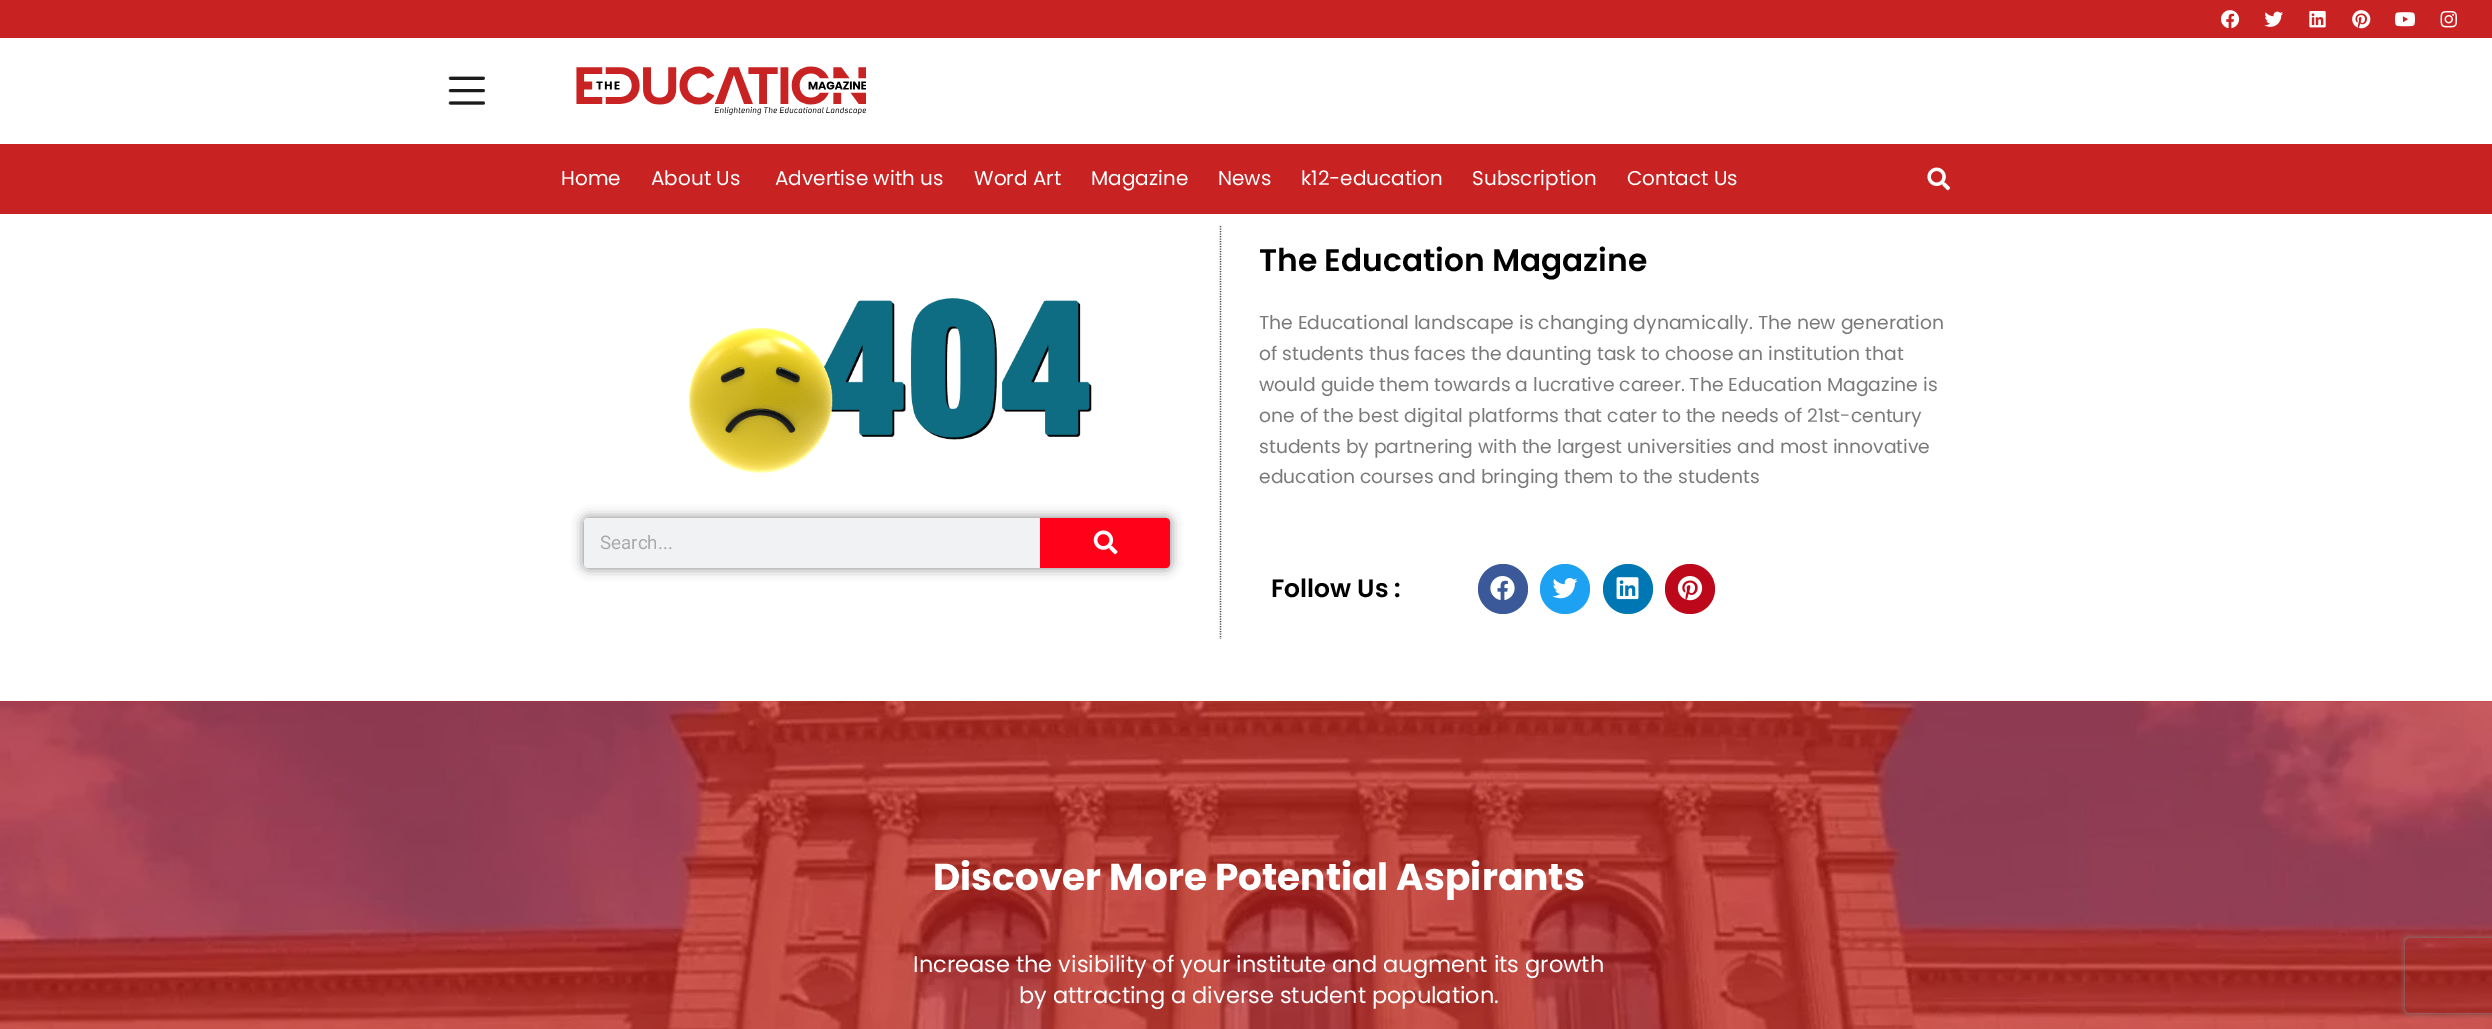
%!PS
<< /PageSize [2492 1029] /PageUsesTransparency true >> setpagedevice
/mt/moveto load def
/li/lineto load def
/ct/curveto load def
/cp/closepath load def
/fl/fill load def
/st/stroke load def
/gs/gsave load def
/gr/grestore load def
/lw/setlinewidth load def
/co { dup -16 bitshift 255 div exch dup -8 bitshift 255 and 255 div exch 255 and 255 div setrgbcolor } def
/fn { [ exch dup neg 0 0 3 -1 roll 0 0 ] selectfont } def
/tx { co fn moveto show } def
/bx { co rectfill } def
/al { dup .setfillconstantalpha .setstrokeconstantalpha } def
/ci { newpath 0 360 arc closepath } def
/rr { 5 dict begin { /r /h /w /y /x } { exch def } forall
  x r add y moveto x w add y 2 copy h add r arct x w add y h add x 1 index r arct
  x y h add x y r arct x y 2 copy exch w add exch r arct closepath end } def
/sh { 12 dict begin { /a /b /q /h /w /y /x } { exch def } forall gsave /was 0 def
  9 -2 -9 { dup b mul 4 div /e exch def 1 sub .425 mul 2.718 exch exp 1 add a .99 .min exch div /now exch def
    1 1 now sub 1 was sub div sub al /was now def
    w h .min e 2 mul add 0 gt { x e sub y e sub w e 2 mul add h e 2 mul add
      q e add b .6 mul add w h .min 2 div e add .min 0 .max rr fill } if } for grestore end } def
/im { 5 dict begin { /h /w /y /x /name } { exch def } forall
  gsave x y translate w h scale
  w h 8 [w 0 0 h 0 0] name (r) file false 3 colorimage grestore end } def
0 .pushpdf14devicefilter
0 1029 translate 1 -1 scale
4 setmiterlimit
0 0 2492 1029 16#FFFFFF bx
0 0 2492 38 16#C92223 bx
(media/1.raw) 2220 10 20 19 im
(media/2.raw) 2264 11 19 16 im
(media/3.raw) 2309 11 17 17 im
(media/4.raw) 2352 10 19 19 im
(media/5.raw) 2395 12 20 15 im
(media/6.raw) 2440 11 17 17 im
(media/7.raw) 448 76 37 29 im
(media/8.raw) 576 66 290 49 im
0 144 2492 70 16#C92223 bx
(media/9.raw) 1927 167 24 24 im
16#4B4F58 co
1.2 lw
[1.25 1.25] 0 setdash
1220.5 226 mt 1220.5 639 li st
(media/10.raw) 688 298 404 175 im
16#000000 co
584 518 586 50 4 6 .5 sh
16#F1F2F3 co
584 518 586 50 4 rr fl
16#FF0118 co
1040 518 mt 1166 518 li 1168 518 1170 520 1170 522 ct 1170 564 li 1170 566 1168 568 1166 568 ct 1040 568 li cp fl
(media/11.raw) 1093 530 25 25 im
16#3B5998 co
1503 589 25 ci fl
(media/12.raw) 1490 576 25 24 im
16#1DA1F2 co
1565 589 25 ci fl
(media/13.raw) 1552 578 26 21 im
16#0077B5 co
1628 589 25 ci fl
(media/14.raw) 1616 577 23 23 im
16#BD081C co
1690 589 25 ci fl
(media/15.raw) 1677 576 26 25 im
(media/16.raw) 0 701 2492 328 im
gs
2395 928 mt 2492 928 li 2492 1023 li 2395 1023 li cp 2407.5 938 mt 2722.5 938 li 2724 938 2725 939 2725 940.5 ct 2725 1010.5 li 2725 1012 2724 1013 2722.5 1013 ct 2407.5 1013 li 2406 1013 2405 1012 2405 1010.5 ct 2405 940.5 li 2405 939 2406 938 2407.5 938 ct cp eoclip newpath
16#808080 co
2405 938 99 75 2.5 3 1 sh
gr
(Home) 561 185 /Poppins-Regular 20 16#FFFFFF tx
(About Us) 651 185 /Poppins-Regular 20 16#FFFFFF tx
(Advertise with us) 775 185 /Poppins-Regular 20 16#FFFFFF tx
(Word Art) 974 185 /Poppins-Regular 20 16#FFFFFF tx
(Magazine) 1091 185 /Poppins-Regular 20 16#FFFFFF tx
(News) 1218 185 /Poppins-Regular 20 16#FFFFFF tx
(k12-education) 1301 185 /Poppins-Regular 20 16#FFFFFF tx
(Subscription) 1472 185 /Poppins-Regular 20 16#FFFFFF tx
(Contact Us) 1627 185 /Poppins-Regular 20 16#FFFFFF tx
(Search...) 600 549 /Roboto-Regular 18.75 16#AAAAAA tx
(The Education Magazine) 1259 271 /Poppins-SemiBold 31.25 16#000000 tx
(The Educational landscape is changing dynamically. The new generation) 1259 329 /Poppins-Regular 18.75 16#7A7A7A tx
(of students thus faces the daunting task to choose an institution that) 1259 360 /Poppins-Regular 18.75 16#7A7A7A tx
(would guide them towards a lucrative career. The Education Magazine is) 1259 391 /Poppins-Regular 18.75 16#7A7A7A tx
(one of the best digital platforms that cater to the needs of 21st-century) 1259 422 /Poppins-Regular 18.75 16#7A7A7A tx
(students by partnering with the largest universities and most innovative) 1259 453 /Poppins-Regular 18.75 16#7A7A7A tx
(education courses and bringing them to the students) 1259 483 /Poppins-Regular 18.75 16#7A7A7A tx
(Follow Us :) 1271 597 /Poppins-SemiBold 25 16#000000 tx
(Discover More Potential Aspirants) 933 890 /Poppins-Bold 37.5 16#FFFFFF tx
(Increase the visibility of your institute and augment its growth) 913 972 /Poppins-Regular 22.5 16#FFFFFF tx
(by attracting a diverse student population.) 1019 1003 /Poppins-Regular 22.5 16#FFFFFF tx
.poppdf14devicefilter showpage
